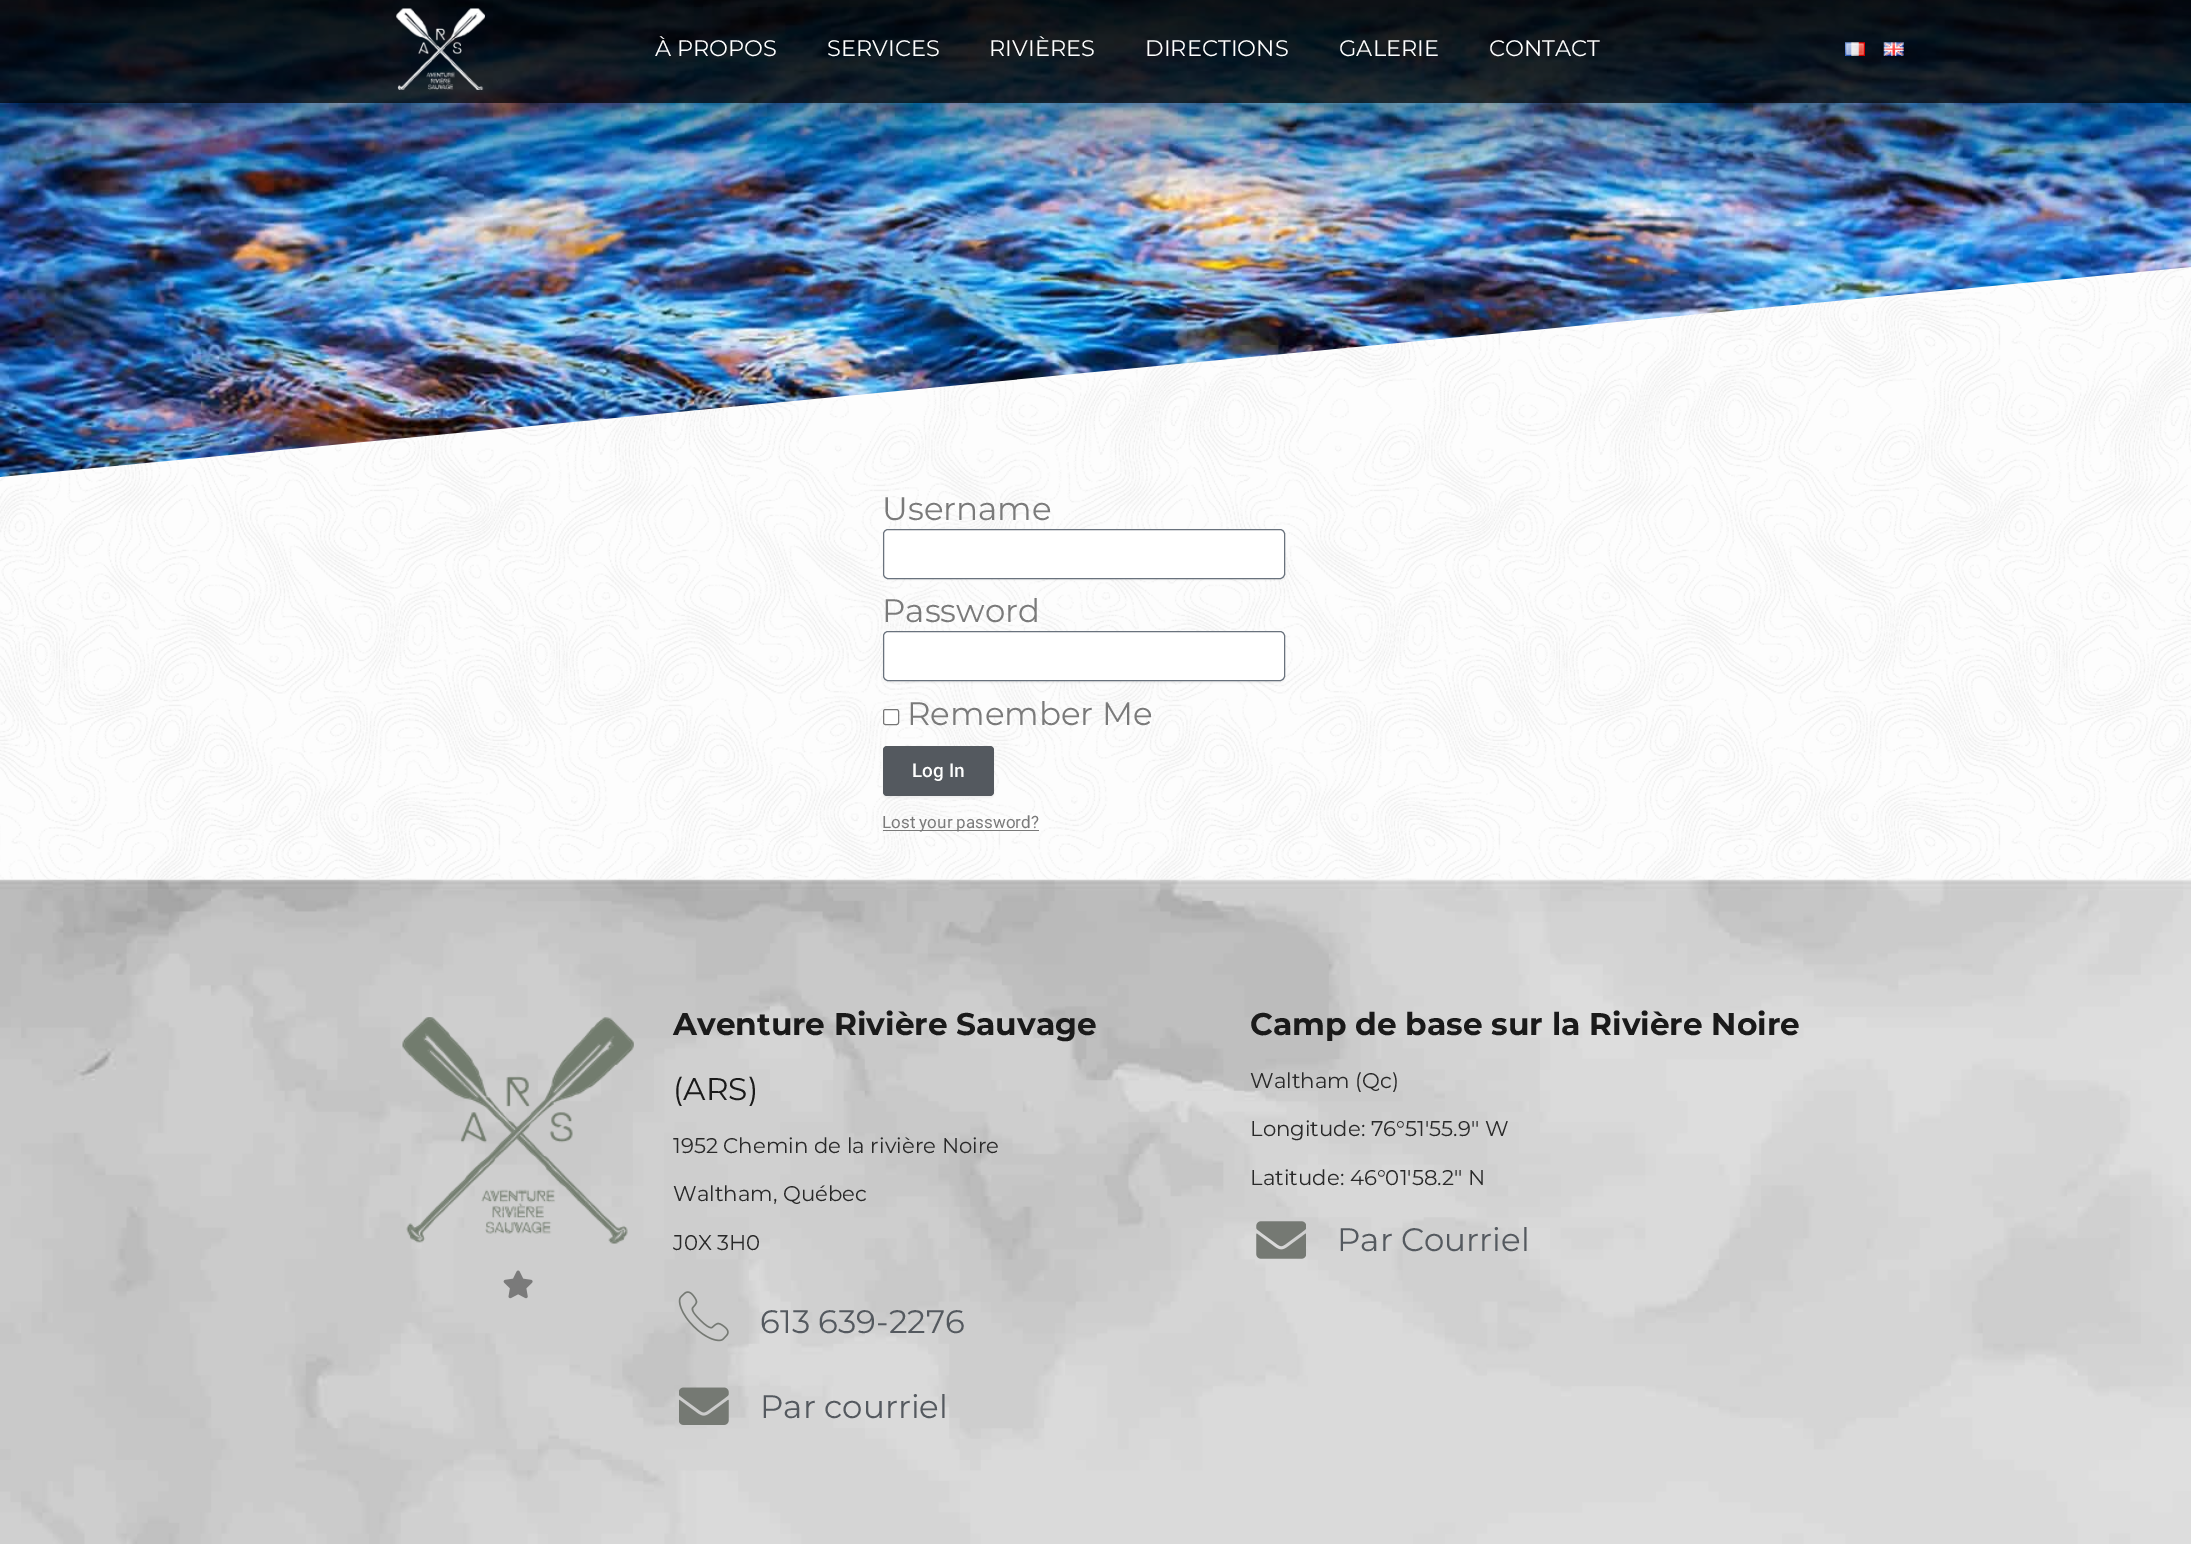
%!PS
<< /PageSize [2191 1544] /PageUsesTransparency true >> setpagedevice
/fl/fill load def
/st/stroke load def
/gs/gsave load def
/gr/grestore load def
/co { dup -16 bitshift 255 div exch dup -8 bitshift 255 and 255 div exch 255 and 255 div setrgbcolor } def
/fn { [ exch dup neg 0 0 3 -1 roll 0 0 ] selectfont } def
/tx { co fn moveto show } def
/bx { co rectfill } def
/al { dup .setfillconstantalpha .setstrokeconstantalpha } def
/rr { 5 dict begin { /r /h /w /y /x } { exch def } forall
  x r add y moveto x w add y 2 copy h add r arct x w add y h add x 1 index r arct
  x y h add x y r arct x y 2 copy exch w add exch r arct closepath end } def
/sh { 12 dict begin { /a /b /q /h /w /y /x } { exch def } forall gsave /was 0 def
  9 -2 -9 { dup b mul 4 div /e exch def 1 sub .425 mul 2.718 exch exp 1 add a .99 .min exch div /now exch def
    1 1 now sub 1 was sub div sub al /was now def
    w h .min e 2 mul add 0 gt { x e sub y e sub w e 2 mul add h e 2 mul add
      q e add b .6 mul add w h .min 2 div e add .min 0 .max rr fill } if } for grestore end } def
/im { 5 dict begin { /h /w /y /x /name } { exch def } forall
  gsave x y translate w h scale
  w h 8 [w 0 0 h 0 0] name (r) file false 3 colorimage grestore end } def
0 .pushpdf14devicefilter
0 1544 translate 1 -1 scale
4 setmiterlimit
0 0 2191 1544 16#FFFFFF bx
(media/5.raw) 0 267 2191 613 im
(media/4.raw) 0 0 2191 477 im
0.71 al
0 0 2191 103 16#000000 bx
1 al
(media/1.raw) 396 8 89 82 im
(media/2.raw) 1845 42 20 14 im
(media/3.raw) 1883 42 21 14 im
883 530 402 50 5 1 .05 sh
16#FFFFFF co
883.5 529.5 401 49 4.5 rr gs fl gr
16#69727D co
st
16#000000 co
883 633 402 50 5 1 .05 sh
16#FFFFFF co
883.5 631.5 401 49 4.5 rr gs fl gr
16#69727D co
st
16#FFFFFF co
883.5 709.5 15 15 2 rr gs fl gr
16#767676 co
st
16#000000 co
883 748 111 50 4 1 .05 sh
16#54595F co
883 746 111 50 4 rr fl
883 830 156 1 16#7A7A7A bx
(media/6.raw) 0 879 2191 665 im
(media/7.raw) 402 1017 232 227 im
(media/8.raw) 503 1270 30 29 im
(media/9.raw) 678 1291 51 51 im
(media/10.raw) 679 1387 50 38 im
(media/11.raw) 1256 1221 50 38 im
(À PROPOS) 655 56 /Montserrat-Regular 22.5 16#FFFFFF tx
(SERVICES) 827 56 /Montserrat-Regular 22.5 16#FFFFFF tx
(RIVIÈRES) 989 56 /Montserrat-Regular 22.5 16#FFFFFF tx
(DIRECTIONS) 1145 56 /Montserrat-Regular 22.5 16#FFFFFF tx
(GALERIE) 1339 56 /Montserrat-Regular 22.5 16#FFFFFF tx
(CONTACT) 1489 56 /Montserrat-Regular 22.5 16#FFFFFF tx
(Username) 882 520 /Montserrat-Regular 32.5 16#7A7A7A tx
(Password) 882 622 /Montserrat-Regular 32.5 16#7A7A7A tx
(Remember Me) 907 725 /Montserrat-Regular 32.5 16#7A7A7A tx
(Log In) 912 777 /Roboto-Medium 19 16#FFFFFF tx
(Lost your password?) 882 828 /Roboto-Regular 17 16#7A7A7A tx
(Aventure Rivière Sauvage) 673 1035 /Montserrat-Bold 31.25 16#1A1A1A tx
(\(ARS\)) 673 1100 /Montserrat-Regular 31.25 16#1A1A1A tx
(1952 Chemin de la rivière Noire) 673 1153 /Montserrat-Regular 21.25 16#292929 tx
(Waltham, Québec) 673 1201 /Montserrat-Regular 21.25 16#292929 tx
(J0X 3H0) 673 1250 /Montserrat-Regular 21.25 16#292929 tx
(613 639-2276) 760 1333 /Montserrat-Regular 32.5 16#54595F tx
(Par courriel) 760 1418 /Montserrat-Regular 32.5 16#54595F tx
(Camp de base sur la Rivière Noire) 1250 1035 /Montserrat-Bold 31.25 16#1A1A1A tx
(Waltham \(Qc\)) 1250 1088 /Montserrat-Regular 21.25 16#292929 tx
(Longitude: 76°51'55.9'' W) 1250 1136 /Montserrat-Regular 21.25 16#292929 tx
(Latitude: 46°01'58.2'' N) 1250 1185 /Montserrat-Regular 21.25 16#292929 tx
(Par Courriel) 1337 1251 /Montserrat-Regular 32.5 16#54595F tx
.poppdf14devicefilter showpage
